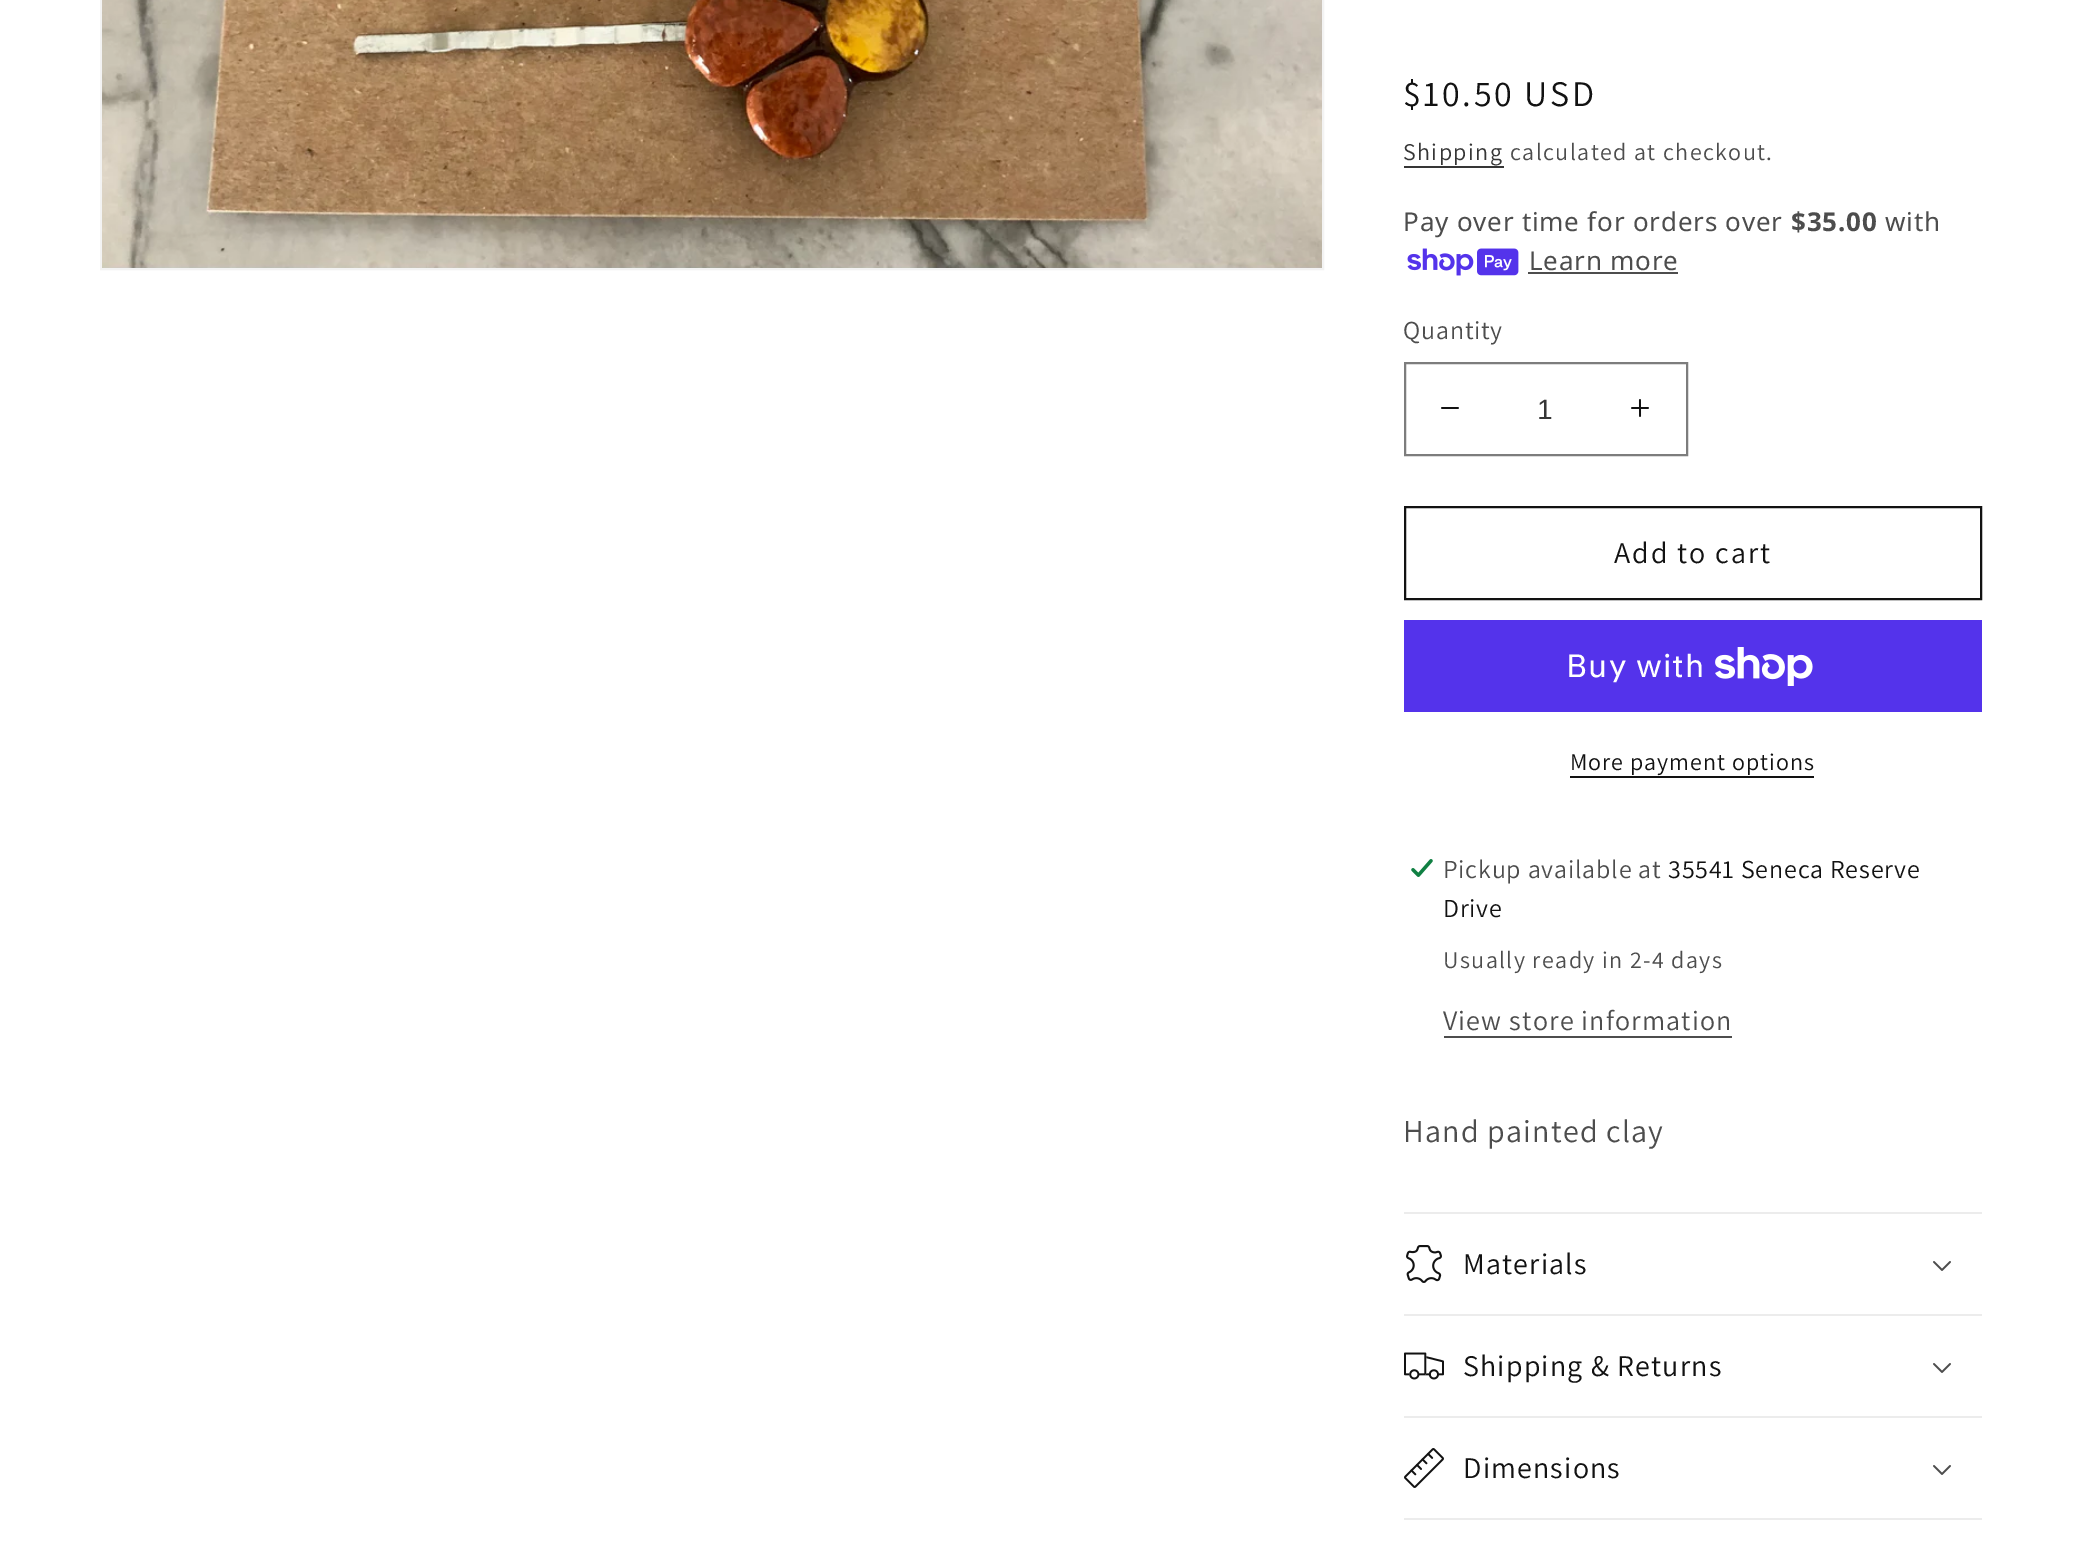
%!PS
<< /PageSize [2081 1544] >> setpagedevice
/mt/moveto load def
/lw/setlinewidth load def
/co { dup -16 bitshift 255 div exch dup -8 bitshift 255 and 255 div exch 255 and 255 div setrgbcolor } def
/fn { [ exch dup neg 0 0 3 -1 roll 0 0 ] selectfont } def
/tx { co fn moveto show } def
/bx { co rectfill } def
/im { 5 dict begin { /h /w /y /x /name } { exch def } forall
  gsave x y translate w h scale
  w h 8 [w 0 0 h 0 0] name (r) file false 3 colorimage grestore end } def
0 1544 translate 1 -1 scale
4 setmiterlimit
0 0 2081 1544 16#FFFFFF bx
16#F3F3F3 co
2 lw
101 -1 1222 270 rectstroke
(media/1.raw) 102 0 1220 268 im
1404 166 100 2 16#363636 bx
(media/2.raw) 1407 248 112 28 im
1528 272 150 2 16#4D4D4D bx
(media/3.raw) 1441 407 18 2 im
(media/4.raw) 1631 399 18 18 im
16#7D7D7D co
1405 363 282 92 rectstroke
16#121212 co
1405 507 576 92 rectstroke
1404 620 578 92 16#5433EB bx
(media/5.raw) 1715 647 98 39 im
1570 776 244 2 16#121212 bx
(media/6.raw) 1411 859 22 18 im
1444 1036 288 2 16#4D4D4D bx
1404 1212 578 2 16#ECECEC bx
1404 1314 578 2 16#ECECEC bx
(media/7.raw) 1406 1245 36 38 im
(media/8.raw) 1933 1261 18 10 im
1404 1416 578 2 16#ECECEC bx
(media/9.raw) 1404 1352 40 28 im
(media/8.raw) 1933 1363 18 10 im
1404 1518 578 2 16#ECECEC bx
(media/10.raw) 1404 1448 40 40 im
(media/8.raw) 1933 1465 18 10 im
/Assistant-Regular 36 fn
16#121212 co
1403 106 mt 2.6 0 ($10.50 USD) ashow
/Assistant-Regular 24 fn
16#363636 co
1403 160 mt 1.4 0 (Shipping) ashow
16#4D4D4D co
1510 160 mt 1.4 0 (calculated at checkout.) ashow
/NotoSans-Regular 26 fn
1403 231 mt .8 0 (Pay over time for orders over) ashow
/NotoSans-Bold 26 fn
1791 231 mt .8 0 ($35.00) ashow
/NotoSans-Regular 26 fn
1885 231 mt .8 0 (with) ashow
1529 270 mt .8 0 (Learn more) ashow
/Assistant-Regular 26 fn
1403 339 mt .8 0 (Quantity) ashow
(1) 1537 419 /LiberationSans-Regular 28 16#363636 tx
/Assistant-Regular 30 fn
16#121212 co
1614 563 mt 2 0 (Add to cart) ashow
/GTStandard-Regular 32 fn
16#FFFFFF co
1566 677 mt 1.2 0 (Buy with) ashow
/Assistant-Regular 24 fn
16#121212 co
1570 770 mt 1 0 (More payment options) ashow
/Assistant-Regular 26 fn
16#4D4D4D co
1443 878 mt .8 0 (Pickup available at) ashow
16#121212 co
1668 878 mt .8 0 (35541 Seneca Reserve) ashow
1443 917 mt .8 0 (Drive) ashow
/Assistant-Regular 24 fn
16#4D4D4D co
1443 968 mt 1.4 0 (Usually ready in 2-4 days) ashow
/Assistant-Regular 28 fn
1443 1030 mt 1.2 0 (View store information) ashow
/Assistant-Regular 32 fn
1403 1142 mt 1.2 0 (Hand painted clay) ashow
/Assistant-Regular 30 fn
16#121212 co
1463 1274 mt 1.2 0 (Materials) ashow
1463 1376 mt 1.2 0 (Shipping & Returns) ashow
1463 1478 mt 1.2 0 (Dimensions) ashow
showpage
